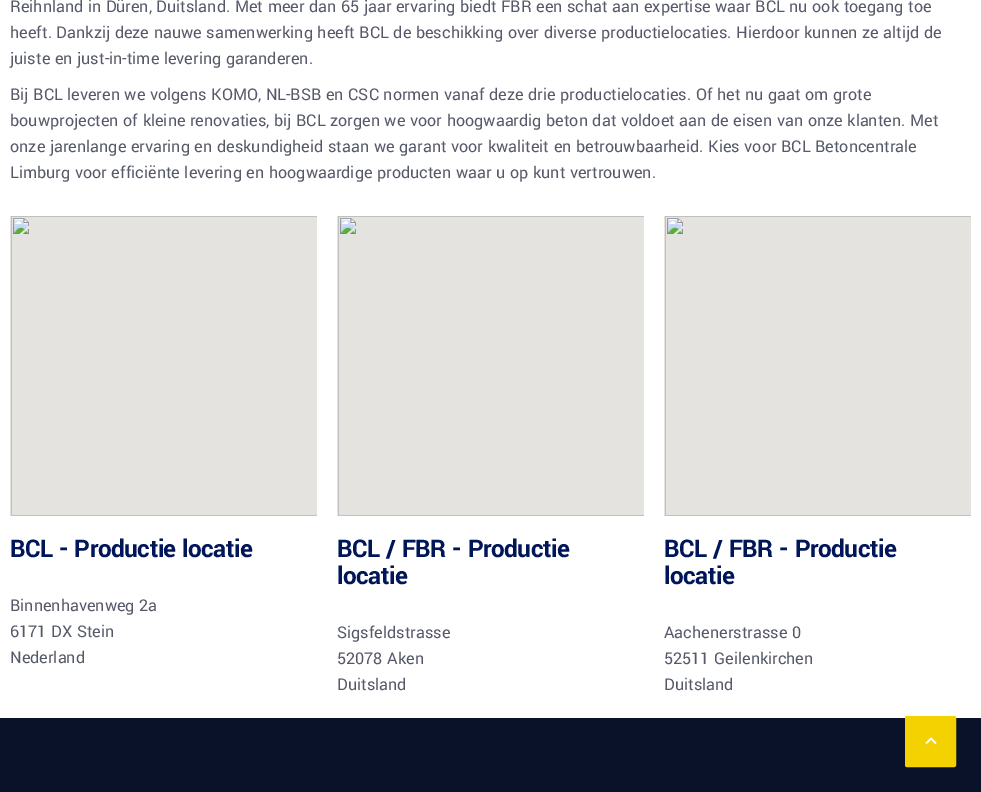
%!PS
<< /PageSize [981 792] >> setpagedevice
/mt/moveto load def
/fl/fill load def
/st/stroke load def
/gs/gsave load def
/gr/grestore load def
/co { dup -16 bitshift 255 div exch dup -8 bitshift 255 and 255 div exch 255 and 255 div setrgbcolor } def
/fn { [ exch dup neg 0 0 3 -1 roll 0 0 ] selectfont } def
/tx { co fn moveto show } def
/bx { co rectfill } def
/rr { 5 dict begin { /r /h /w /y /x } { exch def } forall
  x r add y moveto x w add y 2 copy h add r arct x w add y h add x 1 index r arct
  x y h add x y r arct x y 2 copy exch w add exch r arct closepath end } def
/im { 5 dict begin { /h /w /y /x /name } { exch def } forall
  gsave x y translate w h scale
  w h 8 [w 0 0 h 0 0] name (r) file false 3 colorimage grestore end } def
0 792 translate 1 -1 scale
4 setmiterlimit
0 0 981 792 16#FFFFFF bx
(media/1.raw) 10 216 307 300 im
(media/1.raw) 337 216 307 300 im
(media/1.raw) 664 216 307 300 im
0 718 981 74 16#0A1229 bx
16#F4D201 co
905.5 716.5 50 50 1.5 rr gs fl gr
st
(media/2.raw) 925 737 12 8 im
(Reihnland in Düren, Duitsland. Met meer dan 65 jaar ervaring biedt FBR een schat aan expertise waar BCL nu ook toegang toe) 10 12 /Yantramanav-Regular 18 16#565969 tx
(heeft. Dankzij deze nauwe samenwerking heeft BCL de beschikking over diverse productielocaties. Hierdoor kunnen ze altijd de) 10 38 /Yantramanav-Regular 18 16#565969 tx
(juiste en just-in-time levering garanderen.) 10 64 /Yantramanav-Regular 18 16#565969 tx
(Bij BCL leveren we volgens KOMO, NL-BSB en CSC normen vanaf deze drie productielocaties. Of het nu gaat om grote) 10 100 /Yantramanav-Regular 18 16#565969 tx
(bouwprojecten of kleine renovaties, bij BCL zorgen we voor hoogwaardig beton dat voldoet aan de eisen van onze klanten. Met) 10 126 /Yantramanav-Regular 18 16#565969 tx
(onze jarenlange ervaring en deskundigheid staan we garant voor kwaliteit en betrouwbaarheid. Kies voor BCL Betoncentrale) 10 152 /Yantramanav-Regular 18 16#565969 tx
(Limburg voor efficiënte levering en hoogwaardige producten waar u op kunt vertrouwen.) 10 178 /Yantramanav-Regular 18 16#565969 tx
/Yantramanav-Bold 27 fn
16#001659 co
10 557 mt -.5 0 (BCL - Productie locatie) ashow
(Binnenhavenweg 2a) 10 611 /Yantramanav-Regular 18 16#565969 tx
(6171 DX Stein) 10 637 /Yantramanav-Regular 18 16#565969 tx
(Nederland) 10 663 /Yantramanav-Regular 18 16#565969 tx
/Yantramanav-Bold 27 fn
16#001659 co
337 557 mt -.5 0 (BCL / FBR - Productie) ashow
337 584 mt -.5 0 (locatie) ashow
(Sigsfeldstrasse) 337 638 /Yantramanav-Regular 18 16#565969 tx
(52078 Aken) 337 664 /Yantramanav-Regular 18 16#565969 tx
(Duitsland) 337 690 /Yantramanav-Regular 18 16#565969 tx
/Yantramanav-Bold 27 fn
16#001659 co
664 557 mt -.5 0 (BCL / FBR - Productie) ashow
664 584 mt -.5 0 (locatie) ashow
(Aachenerstrasse 0) 664 638 /Yantramanav-Regular 18 16#565969 tx
(52511 Geilenkirchen) 664 664 /Yantramanav-Regular 18 16#565969 tx
(Duitsland) 664 690 /Yantramanav-Regular 18 16#565969 tx
showpage
